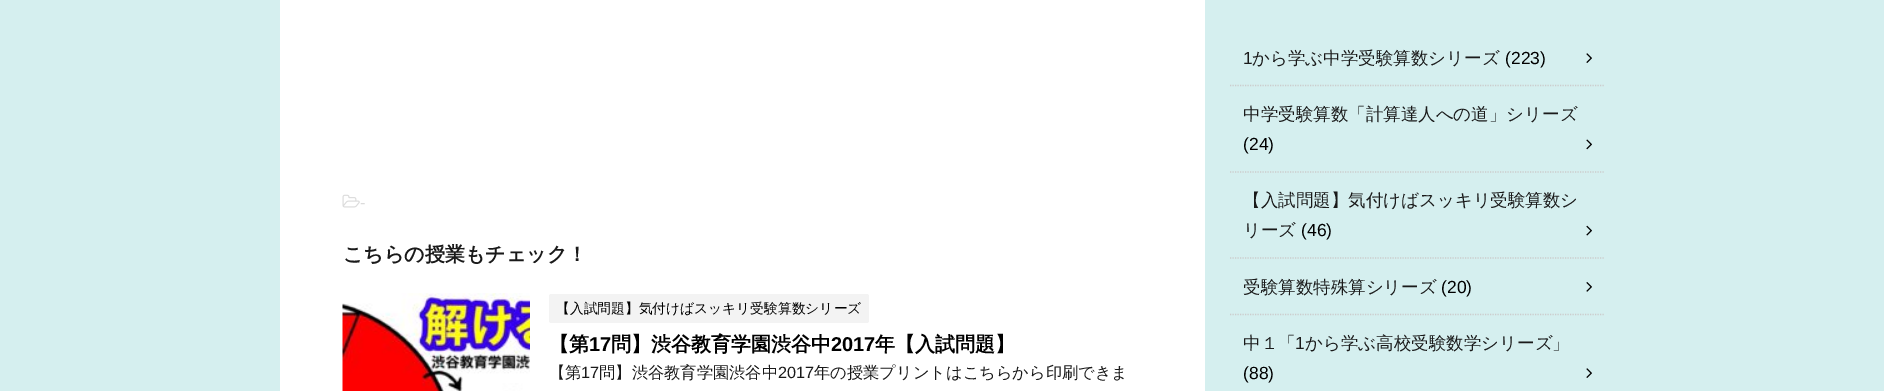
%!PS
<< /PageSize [1884 391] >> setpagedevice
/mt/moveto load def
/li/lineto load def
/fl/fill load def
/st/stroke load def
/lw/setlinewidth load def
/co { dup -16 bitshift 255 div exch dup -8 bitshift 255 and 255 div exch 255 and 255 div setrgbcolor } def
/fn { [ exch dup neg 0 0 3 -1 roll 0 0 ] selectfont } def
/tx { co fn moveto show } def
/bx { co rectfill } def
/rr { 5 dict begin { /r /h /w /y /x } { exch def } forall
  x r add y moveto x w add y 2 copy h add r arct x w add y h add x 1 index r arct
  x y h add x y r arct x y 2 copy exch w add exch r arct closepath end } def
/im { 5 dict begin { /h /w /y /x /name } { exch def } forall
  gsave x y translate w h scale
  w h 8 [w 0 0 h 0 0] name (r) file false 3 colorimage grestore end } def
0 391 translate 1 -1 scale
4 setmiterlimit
0 0 1884 391 16#D5EFEF bx
280 0 925 391 16#FFFFFF bx
(media/1.raw) 342 194 18 14 im
(media/2.raw) 342 293 188 98 im
16#F3F3F3 co
549 294 320 29 2.5 rr fl
16#CCCCCC co
1.2 lw
[1.25 1.25] 0 setdash
1230 85.5 mt 1605 85.5 li st
(media/3.raw) 1586 53 6 10 im
1230 172 mt 1605 172 li st
(media/4.raw) 1586 139 6 11 im
1230 258 mt 1605 258 li st
(media/5.raw) 1586 225 6 11 im
1230 314.5 mt 1605 314.5 li st
(media/6.raw) 1586 282 6 10 im
(media/3.raw) 1586 368 6 10 im
(-) 360 208 /LiberationSans-Regular 16.25 16#DBDBDB tx
(こちらの授業もチェック！) 343 261 /WenQuanYiZenHei-Bold 20 16#1A1A1A tx
(【入試問題】気付けばスッキリ受験算数シリーズ) 556 313 /WenQuanYiZenHei-Medium 13.75 16#000000 tx
(【第) 549 351 /WenQuanYiZenHei-Bold 20 16#000000 tx
(17) 589 351 /LiberationSans-Bold 20 16#000000 tx
(問】渋谷教育学園渋谷中) 611 351 /WenQuanYiZenHei-Bold 20 16#000000 tx
(2017) 831 351 /LiberationSans-Bold 20 16#000000 tx
(年【入試問題】) 875 351 /WenQuanYiZenHei-Bold 20 16#000000 tx
(【第) 549 378 /WenQuanYiZenHei-Medium 16.25 16#1A1A1A tx
(17) 581 378 /LiberationSans-Regular 16.25 16#1A1A1A tx
(問】渋谷教育学園渋谷中) 599 378 /WenQuanYiZenHei-Medium 16.25 16#1A1A1A tx
(2017) 778 378 /LiberationSans-Regular 16.25 16#1A1A1A tx
(年の授業プリントはこちらから印刷できま) 814 378 /WenQuanYiZenHei-Medium 16.25 16#1A1A1A tx
(1) 1243 64 /LiberationSans-Regular 17.5 16#1A1A1A tx
(から学ぶ中学受験算数シリーズ) 1252 64 /WenQuanYiZenHei-Medium 17.5 16#1A1A1A tx
(\(223\)) 1505 64 /LiberationSans-Regular 17.5 16#000000 tx
(中学受験算数「計算達人への道」シリーズ) 1243 120 /WenQuanYiZenHei-Medium 17.5 16#1A1A1A tx
(\(24\)) 1243 150 /LiberationSans-Regular 17.5 16#000000 tx
(【入試問題】気付けばスッキリ受験算数シ) 1243 206 /WenQuanYiZenHei-Medium 17.5 16#1A1A1A tx
(リーズ) 1243 236 /WenQuanYiZenHei-Medium 17.5 16#1A1A1A tx
(\(46\)) 1301 236 /LiberationSans-Regular 17.5 16#000000 tx
(受験算数特殊算シリーズ) 1243 293 /WenQuanYiZenHei-Medium 17.5 16#1A1A1A tx
(\(20\)) 1441 293 /LiberationSans-Regular 17.5 16#000000 tx
(中１「) 1243 349 /WenQuanYiZenHei-Medium 17.5 16#1A1A1A tx
(1) 1295 349 /LiberationSans-Regular 17.5 16#1A1A1A tx
(から学ぶ高校受験数学シリーズ」) 1305 349 /WenQuanYiZenHei-Medium 17.5 16#1A1A1A tx
(\(88\)) 1243 379 /LiberationSans-Regular 17.5 16#000000 tx
showpage
